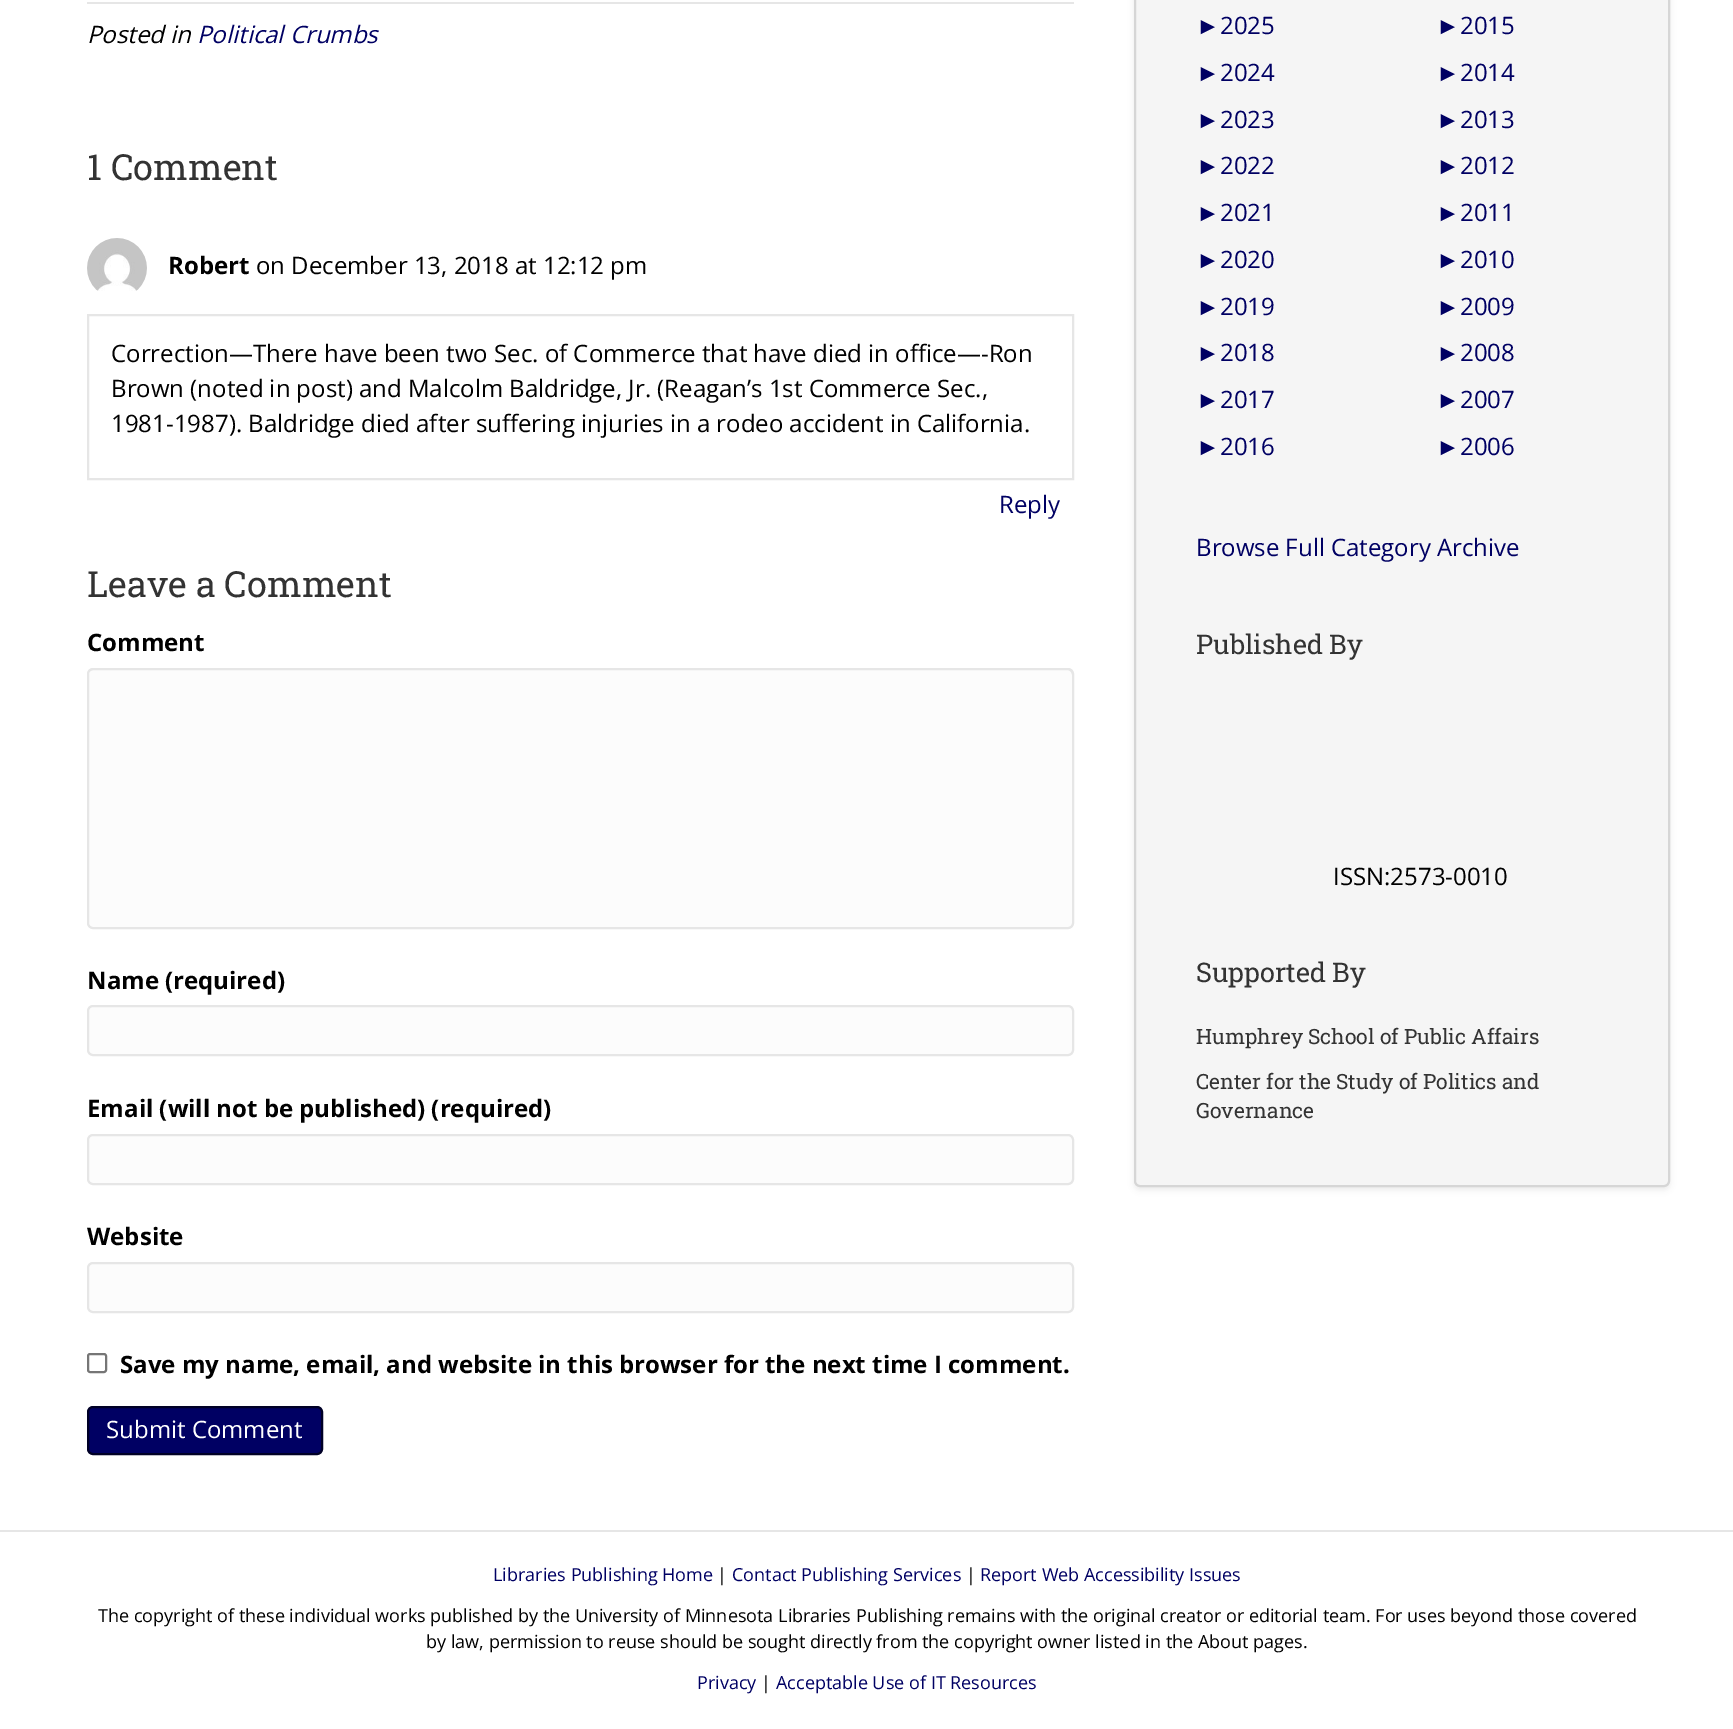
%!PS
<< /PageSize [1733 1729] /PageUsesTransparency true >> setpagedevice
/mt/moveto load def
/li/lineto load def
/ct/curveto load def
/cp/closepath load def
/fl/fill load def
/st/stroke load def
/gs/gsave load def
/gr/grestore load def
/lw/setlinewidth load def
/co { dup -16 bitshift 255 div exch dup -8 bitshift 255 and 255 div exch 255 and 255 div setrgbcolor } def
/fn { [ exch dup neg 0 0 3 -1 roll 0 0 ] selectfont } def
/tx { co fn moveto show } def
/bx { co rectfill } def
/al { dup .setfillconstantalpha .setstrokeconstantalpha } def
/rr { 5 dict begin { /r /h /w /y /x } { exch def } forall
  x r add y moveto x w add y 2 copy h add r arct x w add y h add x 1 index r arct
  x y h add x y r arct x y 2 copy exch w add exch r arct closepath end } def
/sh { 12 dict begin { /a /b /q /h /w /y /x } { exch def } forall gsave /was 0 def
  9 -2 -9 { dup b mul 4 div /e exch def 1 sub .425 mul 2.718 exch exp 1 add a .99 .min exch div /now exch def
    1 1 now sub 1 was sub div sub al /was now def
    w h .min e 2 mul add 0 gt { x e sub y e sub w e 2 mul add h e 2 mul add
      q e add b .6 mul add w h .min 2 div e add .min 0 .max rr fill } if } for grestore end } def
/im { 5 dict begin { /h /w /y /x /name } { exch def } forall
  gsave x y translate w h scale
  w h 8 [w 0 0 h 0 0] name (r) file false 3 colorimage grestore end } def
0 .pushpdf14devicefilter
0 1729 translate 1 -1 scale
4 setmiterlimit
0 0 1733 1729 16#FFFFFF bx
87 2 987 2 16#E6E6E6 bx
(media/1.raw) 87 238 60 53 im
2 lw
88 315 985 164 rectstroke
16#FCFCFC co
87 668 987 261 6 rr fl
16#E9E9E9 co
93 670 mt 1068 670 li 1070 670 1072 673 1072 675 ct 1072 925 li 1073 924 1073 923 1073 922 ct 1073 674 li 1073 671 1071 669 1068 669 ct 94 669 li 92 669 90 670 89 672 ct 90 671 92 670 93 670 ct cp fl
16#E6E6E6 co
88 669 985 259 5 rr st
16#FCFCFC co
88 1006 985 49 5 rr gs fl gr
16#E6E6E6 co
st
16#FCFCFC co
88 1135 985 49 5 rr gs fl gr
16#E6E6E6 co
st
16#FCFCFC co
88 1263 985 49 5 rr gs fl gr
16#E6E6E6 co
st
16#767676 co
88 1354 18 18 2 rr st
16#000063 co
88 1407 234 47 5 rr gs fl gr
16#000026 co
st
16#000000 co
1134 -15 536 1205 6 3 .07 sh
16#F5F5F5 co
1135 -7 534 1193 5 rr gs fl gr
16#D6D6D6 co
st
0 1530 1733 2 16#E6E6E6 bx
(Posted in) 87 43 /OpenSans-Italic 24 16#000000 tx
(Political Crumbs) 197 43 /OpenSans-Italic 24 16#000063 tx
(1 Comment) 87 180 /RobotoSlab-Regular 36 16#333333 tx
(Robert) 168 274 /OpenSans-Bold 24 16#000000 tx
(on December 13, 2018 at 12:12 pm) 256 274 /OpenSans-Regular 24 16#000000 tx
(Correction—There have been two Sec. of Commerce that have died in office—-Ron) 111 362 /OpenSans-Regular 24 16#000000 tx
(Brown \(noted in post\) and Malcolm Baldridge, Jr. \(Reagan’s 1st Commerce Sec.,) 111 397 /OpenSans-Regular 24 16#000000 tx
(1981-1987\). Baldridge died after suffering injuries in a rodeo accident in California.) 111 432 /OpenSans-Regular 24 16#000000 tx
(Reply) 999 513 /OpenSans-Regular 24 16#000063 tx
(Leave a Comment) 87 597 /RobotoSlab-Regular 36 16#333333 tx
(Comment) 87 651 /OpenSans-Bold 24 16#000000 tx
(Name \(required\)) 87 989 /OpenSans-Bold 24 16#000000 tx
(Email \(will not be published\) \(required\)) 87 1117 /OpenSans-Bold 24 16#000000 tx
(Website) 87 1245 /OpenSans-Bold 24 16#000000 tx
(Save my name, email, and website in this browser for the next time I comment.) 120 1373 /OpenSans-Bold 24 16#000000 tx
(Submit Comment) 106 1438 /OpenSans-Regular 24 16#FFFFFF tx
(►) 1196 34 /LiberationSans-Regular 24 16#000063 tx
(2025) 1220 34 /OpenSans-Regular 24 16#000063 tx
(►) 1436 34 /LiberationSans-Regular 24 16#000063 tx
(2015) 1460 34 /OpenSans-Regular 24 16#000063 tx
(►) 1196 81 /LiberationSans-Regular 24 16#000063 tx
(2024) 1220 81 /OpenSans-Regular 24 16#000063 tx
(►) 1436 81 /LiberationSans-Regular 24 16#000063 tx
(2014) 1460 81 /OpenSans-Regular 24 16#000063 tx
(►) 1196 128 /LiberationSans-Regular 24 16#000063 tx
(2023) 1220 128 /OpenSans-Regular 24 16#000063 tx
(►) 1436 128 /LiberationSans-Regular 24 16#000063 tx
(2013) 1460 128 /OpenSans-Regular 24 16#000063 tx
(►) 1196 174 /LiberationSans-Regular 24 16#000063 tx
(2022) 1220 174 /OpenSans-Regular 24 16#000063 tx
(►) 1436 174 /LiberationSans-Regular 24 16#000063 tx
(2012) 1460 174 /OpenSans-Regular 24 16#000063 tx
(►) 1196 221 /LiberationSans-Regular 24 16#000063 tx
(2021) 1220 221 /OpenSans-Regular 24 16#000063 tx
(►) 1436 221 /LiberationSans-Regular 24 16#000063 tx
(2011) 1460 221 /OpenSans-Regular 24 16#000063 tx
(►) 1196 268 /LiberationSans-Regular 24 16#000063 tx
(2020) 1220 268 /OpenSans-Regular 24 16#000063 tx
(►) 1436 268 /LiberationSans-Regular 24 16#000063 tx
(2010) 1460 268 /OpenSans-Regular 24 16#000063 tx
(►) 1196 315 /LiberationSans-Regular 24 16#000063 tx
(2019) 1220 315 /OpenSans-Regular 24 16#000063 tx
(►) 1436 315 /LiberationSans-Regular 24 16#000063 tx
(2009) 1460 315 /OpenSans-Regular 24 16#000063 tx
(►) 1196 361 /LiberationSans-Regular 24 16#000063 tx
(2018) 1220 361 /OpenSans-Regular 24 16#000063 tx
(►) 1436 361 /LiberationSans-Regular 24 16#000063 tx
(2008) 1460 361 /OpenSans-Regular 24 16#000063 tx
(►) 1196 408 /LiberationSans-Regular 24 16#000063 tx
(2017) 1220 408 /OpenSans-Regular 24 16#000063 tx
(►) 1436 408 /LiberationSans-Regular 24 16#000063 tx
(2007) 1460 408 /OpenSans-Regular 24 16#000063 tx
(►) 1196 455 /LiberationSans-Regular 24 16#000063 tx
(2016) 1220 455 /OpenSans-Regular 24 16#000063 tx
(►) 1436 455 /LiberationSans-Regular 24 16#000063 tx
(2006) 1460 455 /OpenSans-Regular 24 16#000063 tx
(Browse Full Category Archive) 1196 556 /OpenSans-Regular 24 16#000063 tx
(Published By) 1196 654 /RobotoSlab-Regular 27 16#333333 tx
(ISSN:2573-0010) 1333 885 /OpenSans-Regular 24 16#000000 tx
(Supported By) 1196 982 /RobotoSlab-Regular 27 16#333333 tx
(Humphrey School of Public Affairs) 1196 1044 /RobotoSlab-Regular 21 16#333333 tx
(Center for the Study of Politics and) 1196 1089 /RobotoSlab-Regular 21 16#333333 tx
(Governance) 1196 1118 /RobotoSlab-Regular 21 16#333333 tx
(Libraries Publishing Home) 493 1581 /OpenSans-Regular 18 16#000063 tx
(|) 717 1581 /OpenSans-Regular 18 16#000000 tx
(Contact Publishing Services) 732 1581 /OpenSans-Regular 18 16#000063 tx
(|) 966 1581 /OpenSans-Regular 18 16#000000 tx
(Report Web Accessibility Issues) 980 1581 /OpenSans-Regular 18 16#000063 tx
(The copyright of these individual works published by the University of Minnesota Libraries Publishing remains with the original creator or editorial team. For uses beyond those covered) 98 1622 /OpenSans-Regular 18 16#000000 tx
(by law, permission to reuse should be sought directly from the copyright owner listed in the About pages.) 426 1648 /OpenSans-Regular 18 16#000000 tx
(Privacy) 697 1689 /OpenSans-Regular 18 16#000063 tx
(|) 761 1689 /OpenSans-Regular 18 16#000000 tx
(Acceptable Use of IT Resources) 776 1689 /OpenSans-Regular 18 16#000063 tx
.poppdf14devicefilter showpage
